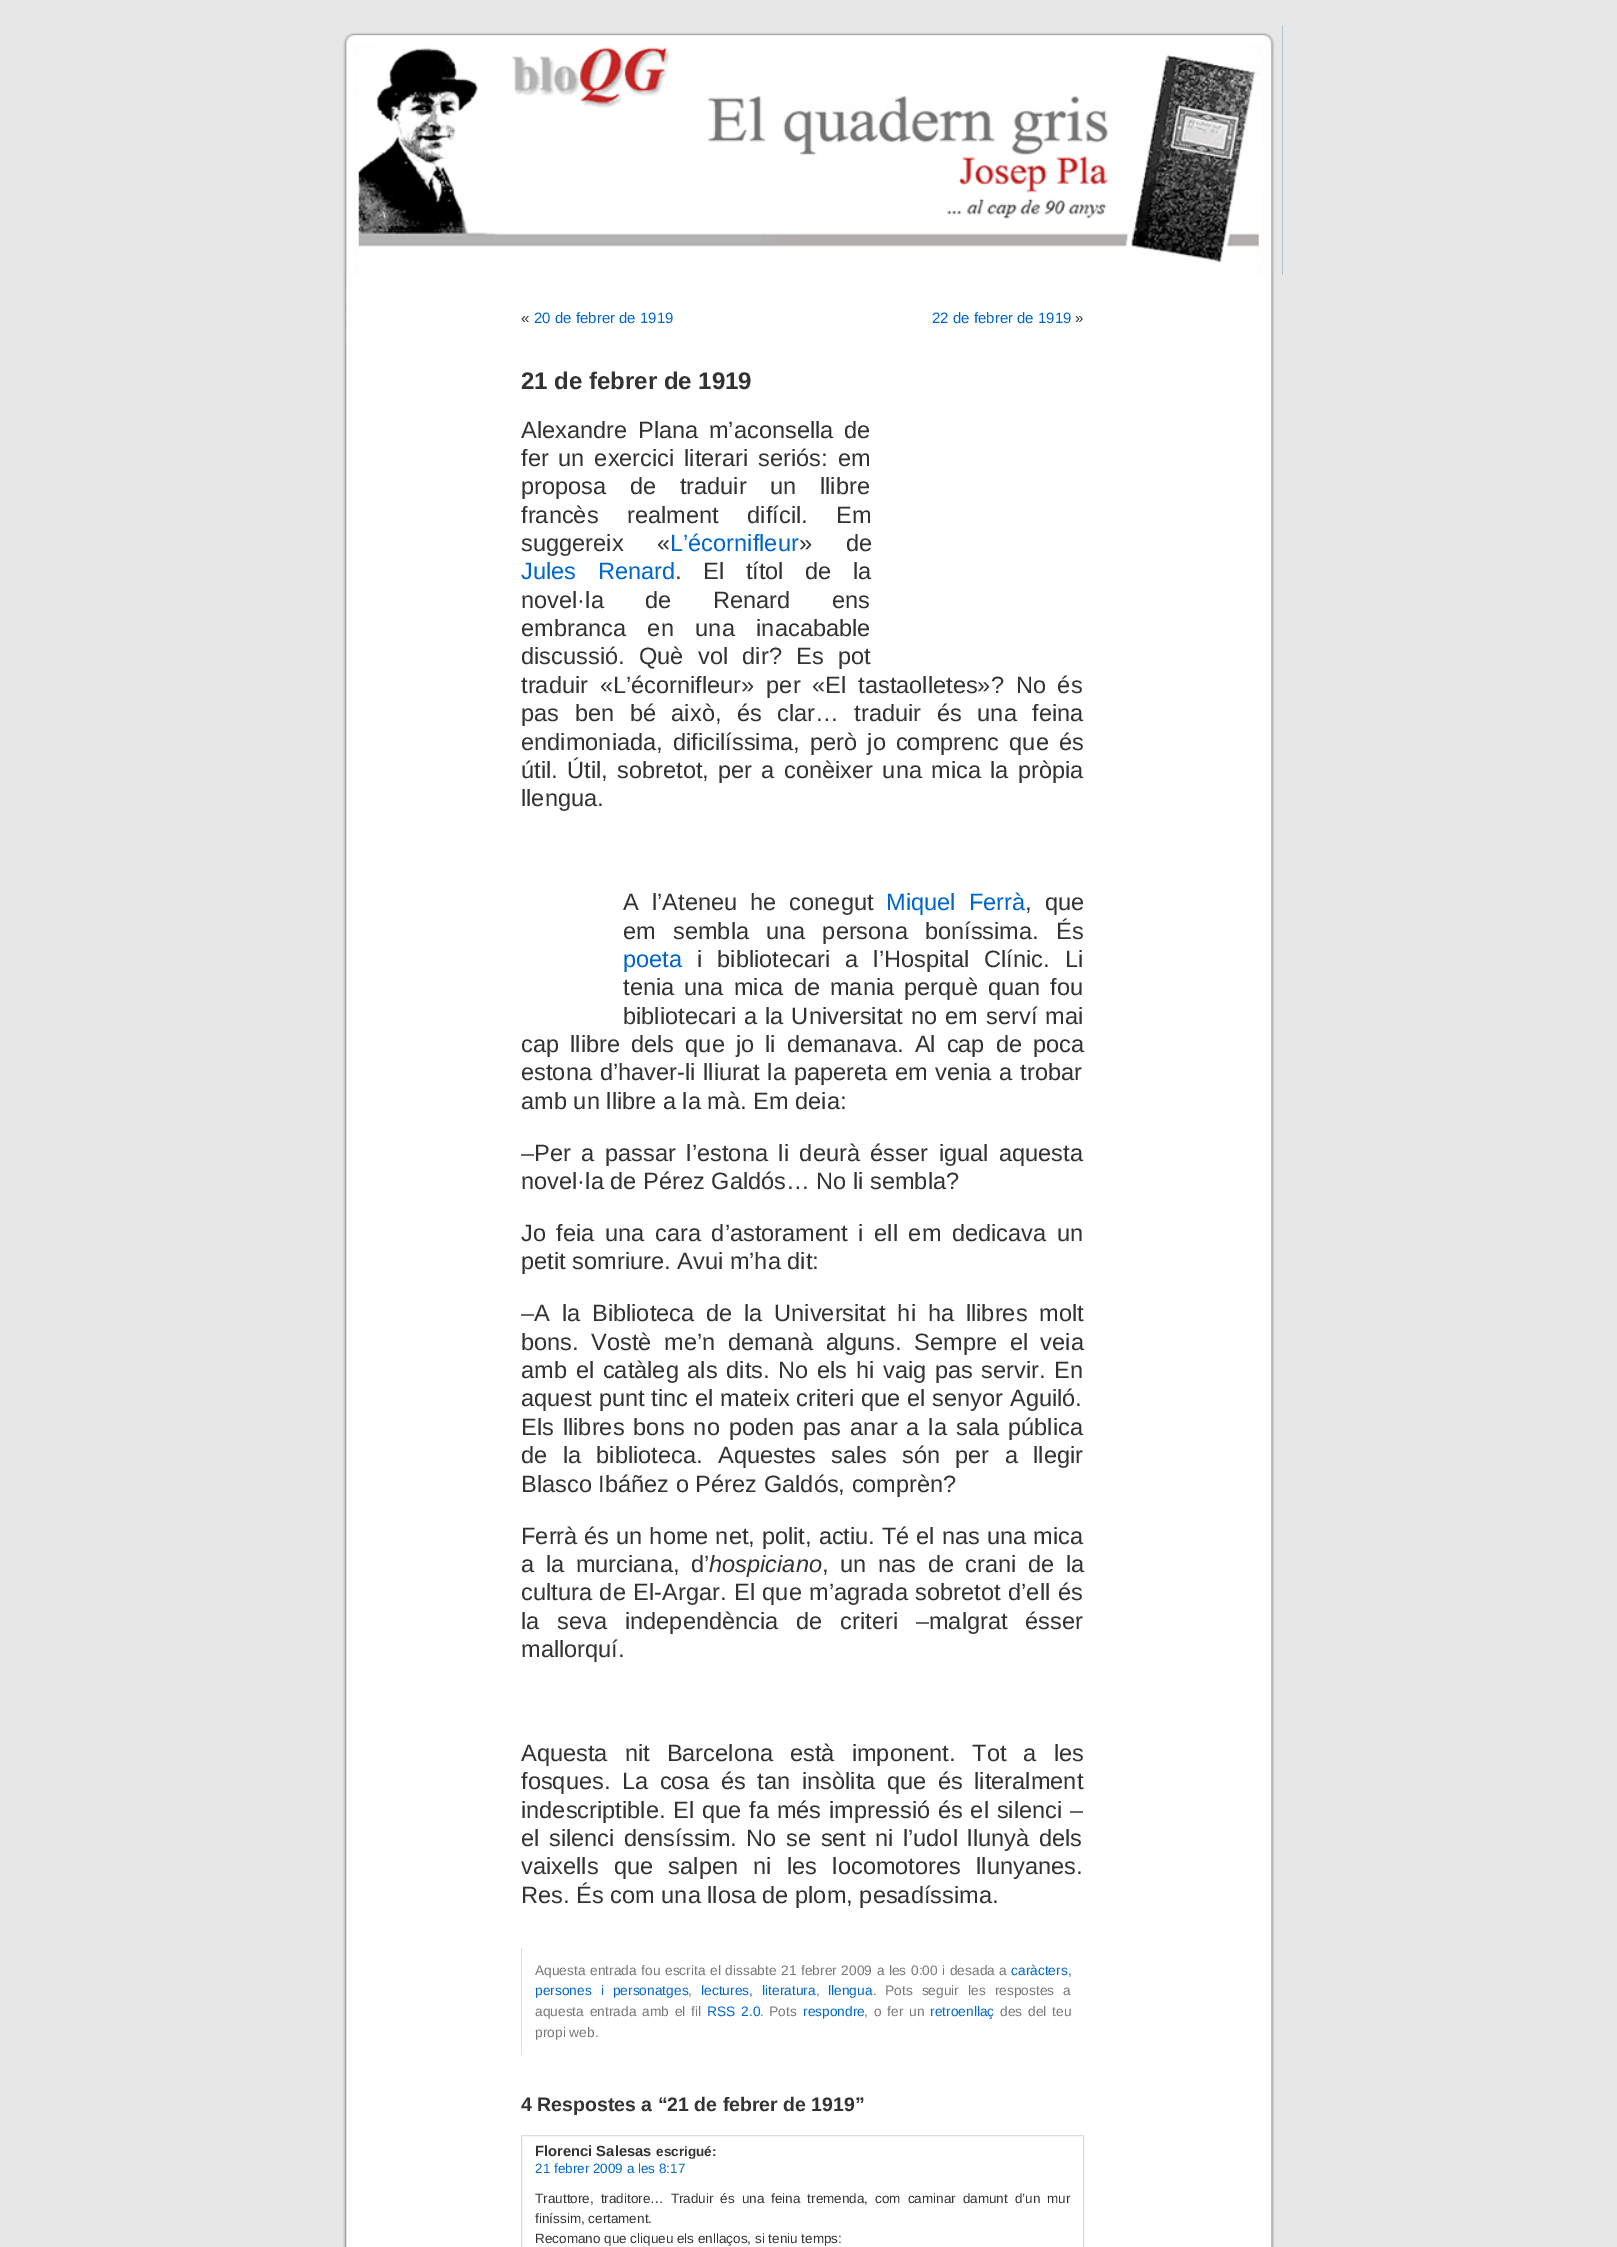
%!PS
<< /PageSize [1617 2247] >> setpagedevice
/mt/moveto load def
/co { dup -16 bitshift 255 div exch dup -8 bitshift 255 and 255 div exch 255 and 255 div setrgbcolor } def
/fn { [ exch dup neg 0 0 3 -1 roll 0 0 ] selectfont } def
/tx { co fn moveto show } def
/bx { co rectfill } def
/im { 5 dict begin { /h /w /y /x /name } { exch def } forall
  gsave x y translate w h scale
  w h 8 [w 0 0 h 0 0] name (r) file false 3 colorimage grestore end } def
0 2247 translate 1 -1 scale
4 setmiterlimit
0 0 1617 2247 16#E7E7E7 bx
(media/1.raw) 342 275 933 1972 im
1282 25 1 250 16#73A0C5 bx
(media/2.raw) 335 25 948 250 im
521 1948 1 107 16#DDDDDD bx
521.5 2135.5 562 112 rectstroke
(«) 521 323 /LiberationSans-Regular 15 16#333333 tx
(20 de febrer de 1919) 534 323 /LiberationSans-Regular 15 16#0066CC tx
(22 de febrer de 1919) 932 323 /LiberationSans-Regular 15 16#0066CC tx
(») 1075 323 /LiberationSans-Regular 15 16#333333 tx
(21 de febrer de 1919) 521 389 /LiberationSans-Bold 24 16#333333 tx
/LiberationSans-Regular 23.6 fn
521 438 mt 4 0 32 (Alexandre Plana m’aconsella de) widthshow
521 466 mt 3.25 0 32 (fer un exercici literari seriós: em) widthshow
521 494 mt 17 0 32 (proposa de traduir un llibre) widthshow
521 523 mt 22 0 32 (francès realment difícil. Em) widthshow
521 551 mt 27 0 32 (suggereix «) widthshow
(L’écornifleur) 670 551 /LiberationSans-Regular 23.6 16#0066CC tx
16#333333 co
799 551 mt 27 0 32 (» de) widthshow
16#0066CC co
521 579 mt 15 0 32 (Jules Renard) widthshow
16#333333 co
675 579 mt 15 0 32 (. El títol de la) widthshow
521 608 mt 35 0 32 (novel·la de Renard ens) widthshow
521 636 mt 15 0 32 (embranca en una inacabable) widthshow
521 664 mt 7.75 0 32 (discussió. Què vol dir? Es pot) widthshow
521 693 mt 5.25 0 32 (traduir «L’écornifleur» per «El tastaolletes»? No és) widthshow
521 721 mt 9 0 32 (pas ben bé això, és clar… traduir és una feina) widthshow
521 750 mt 3.5 0 32 (endimoniada, dificilíssima, però jo comprenc que és) widthshow
521 778 mt 2.75 0 32 (útil. Útil, sobretot, per a conèixer una mica la pròpia) widthshow
(llengua.) 521 806 /LiberationSans-Regular 23.6 16#333333 tx
623 910 mt 6.5 0 32 (A l’Ateneu he conegut) widthshow
16#0066CC co
886 910 mt 6.5 0 32 (Miquel Ferrà) widthshow
16#333333 co
1025 910 mt 6.5 0 32 (, que) widthshow
623 939 mt 10.5 0 32 (em sembla una persona boníssima. És) widthshow
(poeta) 623 967 /LiberationSans-Regular 23.6 16#0066CC tx
16#333333 co
697 967 mt 8.5 0 32 (i bibliotecari a l’Hospital Clínic. Li) widthshow
623 995 mt 3.5 0 32 (tenia una mica de mania perquè quan fou) widthshow
623 1024 mt 1.5 0 32 (bibliotecari a la Universitat no em serví mai) widthshow
521 1052 mt 4.5 0 32 (cap llibre dels que jo li demanava. Al cap de poca) widthshow
521 1080 mt 1.25 0 32 (estona d’haver-li lliurat la papereta em venia a trobar) widthshow
(amb un llibre a la mà. Em deia:) 521 1109 /LiberationSans-Regular 23.6 16#333333 tx
521 1161 mt 4 0 32 (–Per a passar l’estona li deurà ésser igual aquesta) widthshow
(novel·la de Pérez Galdós… No li sembla?) 521 1189 /LiberationSans-Regular 23.6 16#333333 tx
521 1241 mt 4 0 32 (Jo feia una cara d’astorament i ell em dedicava un) widthshow
(petit somriure. Avui m’ha dit:) 521 1269 /LiberationSans-Regular 23.6 16#333333 tx
521 1321 mt 5.25 0 32 (–A la Biblioteca de la Universitat hi ha llibres molt) widthshow
521 1350 mt 6 0 32 (bons. Vostè me’n demanà alguns. Sempre el veia) widthshow
521 1378 mt 2.1 0 32 (amb el catàleg als dits. No els hi vaig pas servir. En) widthshow
521 1406 mt .25 0 32 (aquest punt tinc el mateix criteri que el senyor Aguiló.) widthshow
521 1435 mt 2.4 0 32 (Els llibres bons no poden pas anar a la sala pública) widthshow
521 1463 mt 8.75 0 32 (de la biblioteca. Aquestes sales són per a llegir) widthshow
(Blasco Ibáñez o Pérez Galdós, comprèn?) 521 1492 /LiberationSans-Regular 23.6 16#333333 tx
521 1544 mt .4 0 32 (Ferrà és un home net, polit, actiu. Té el nas una mica) widthshow
521 1572 mt 5 0 32 (a la murciana, d’) widthshow
(hospiciano) 709 1572 /LiberationSans-Italic 23.6 16#333333 tx
/LiberationSans-Regular 23.6 fn
822 1572 mt 5 0 32 (, un nas de crani de la) widthshow
521 1600 mt 1 0 32 (cultura de El-Argar. El que m’agrada sobretot d’ell és) widthshow
521 1629 mt 11.25 0 32 (la seva independència de criteri –malgrat ésser) widthshow
(mallorquí.) 521 1657 /LiberationSans-Regular 23.6 16#333333 tx
521 1761 mt 10.5 0 32 (Aquesta nit Barcelona està imponent. Tot a les) widthshow
521 1789 mt 5 0 32 (fosques. La cosa és tan insòlita que és literalment) widthshow
521 1818 mt 1.25 0 32 (indescriptible. El que fa més impressió és el silenci –) widthshow
521 1846 mt 3 0 32 (el silenci densíssim. No se sent ni l’udol llunyà dels) widthshow
521 1874 mt 8.75 0 32 (vaixells que salpen ni les locomotores llunyanes.) widthshow
(Res. És com una llosa de plom, pesadíssima.) 521 1903 /LiberationSans-Regular 23.6 16#333333 tx
/LiberationSans-Regular 13.75 fn
16#777777 co
535 1975 mt .75 0 32 (Aquesta entrada fou escrita) widthshow
710 1975 mt .75 0 32 (el dissabte 21 febrer 2009 a les 0:00 i desada a) widthshow
(caràcters,) 1011 1975 /LiberationSans-Regular 13.75 16#0066CC tx
535 1995 mt 5.25 0 32 (persones i personatges) widthshow
(,) 688 1995 /LiberationSans-Regular 13.75 16#777777 tx
16#0066CC co
701 1995 mt 5.25 0 32 (lectures, literatura) widthshow
(,) 816 1995 /LiberationSans-Regular 13.75 16#777777 tx
(llengua) 828 1995 /LiberationSans-Regular 13.75 16#0066CC tx
(.) 873 1995 /LiberationSans-Regular 13.75 16#777777 tx
885 1995 mt 5.25 0 32 (Pots seguir les respostes a) widthshow
535 2016 mt 2 0 32 (aquesta entrada amb el fil) widthshow
16#0066CC co
707 2016 mt 2 0 32 (RSS 2.0) widthshow
(.) 760 2016 /LiberationSans-Regular 13.75 16#777777 tx
(Pots) 769 2016 /LiberationSans-Regular 13.75 16#777777 tx
(respondre) 803 2016 /LiberationSans-Regular 13.75 16#0066CC tx
16#777777 co
864 2016 mt 2 0 32 (, o fer un) widthshow
(retroenllaç) 930 2016 /LiberationSans-Regular 13.75 16#0066CC tx
16#777777 co
1000 2016 mt 2 0 32 (des del teu) widthshow
(propi web.) 535 2037 /LiberationSans-Regular 13.75 16#777777 tx
(4 Respostes a “21 de febrer de 1919”) 521 2111 /LiberationSans-Bold 19.5 16#333333 tx
(Florenci Salesas) 535 2156 /LiberationSans-Bold 14.75 16#333333 tx
(escrigué:) 656 2156 /LiberationSans-Bold 13.5 16#333333 tx
(21 febrer 2009 a les 8:17) 535 2173 /LiberationSans-Regular 13.5 16#0066CC tx
16#333333 co
535 2203 mt 3.25 0 32 (Trauttore, traditore… Traduir és una feina tremenda, com caminar damunt d’un mur) widthshow
(finíssim, certament.) 535 2223 /LiberationSans-Regular 13.5 16#333333 tx
(Recomano que cliqueu els enllaços, si teniu temps:) 535 2243 /LiberationSans-Regular 13.5 16#333333 tx
showpage
